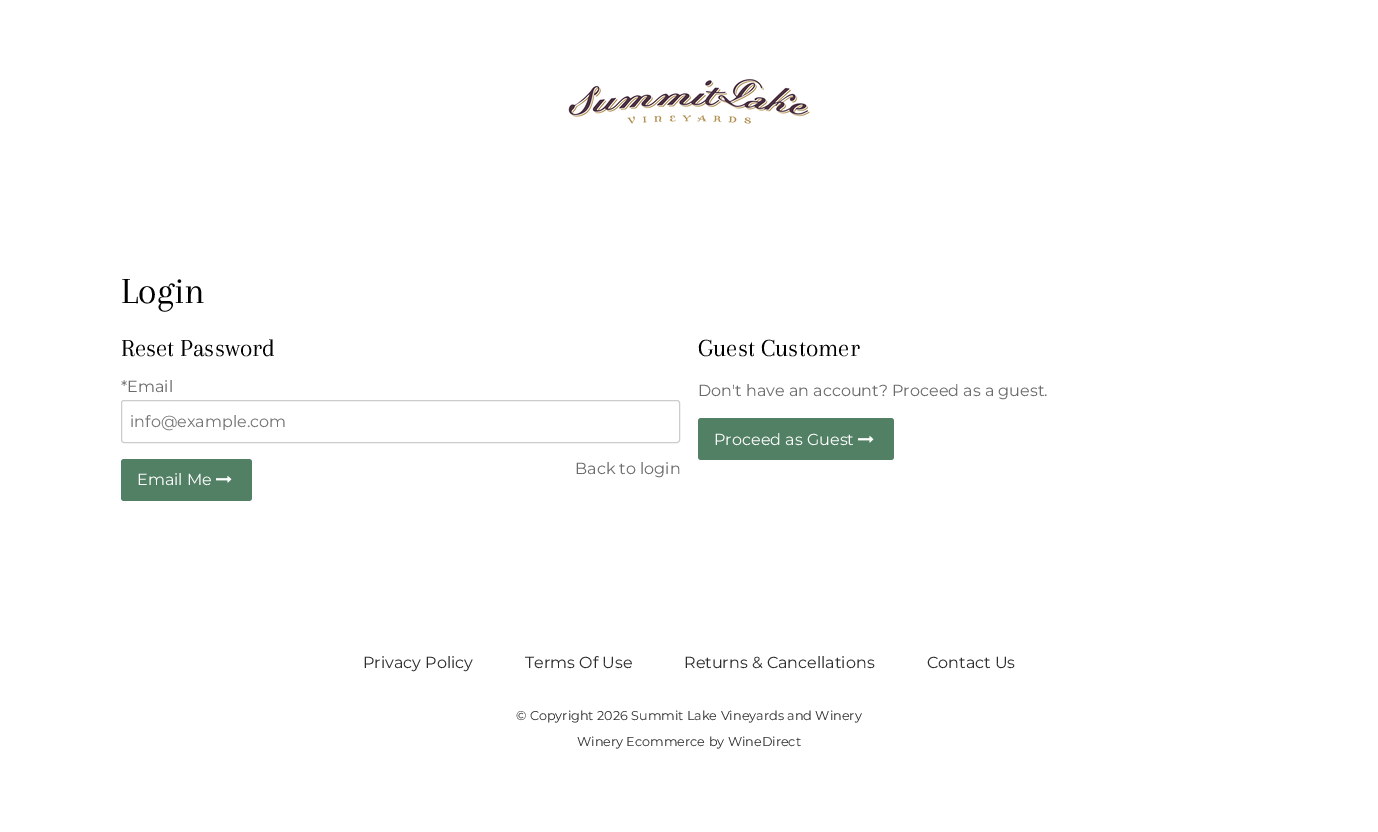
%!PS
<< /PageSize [1378 832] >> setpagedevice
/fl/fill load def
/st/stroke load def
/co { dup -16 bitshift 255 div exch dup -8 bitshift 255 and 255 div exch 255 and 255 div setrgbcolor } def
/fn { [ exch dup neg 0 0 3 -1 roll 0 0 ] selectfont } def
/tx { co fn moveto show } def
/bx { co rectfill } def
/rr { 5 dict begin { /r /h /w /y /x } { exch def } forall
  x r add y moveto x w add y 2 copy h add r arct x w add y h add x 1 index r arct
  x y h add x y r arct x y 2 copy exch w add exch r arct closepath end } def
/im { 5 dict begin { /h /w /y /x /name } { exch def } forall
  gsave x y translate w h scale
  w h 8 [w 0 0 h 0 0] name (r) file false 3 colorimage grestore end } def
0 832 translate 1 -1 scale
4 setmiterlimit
0 0 1378 832 16#FFFFFF bx
(media/1.raw) 568 79 242 45 im
16#CCCCCC co
121.5 400.5 558 42 2.5 rr st
16#528064 co
121 459 131 42 3 rr fl
(media/2.raw) 216 475 16 8 im
698 418 196 42 3 rr fl
(media/2.raw) 858 435 16 8 im
(Login) 121 303 /Arapey-Regular 38 16#000000 tx
(Reset Password) 121 356 /Arapey-Regular 25.5 16#000000 tx
(*Email) 121 392 /Montserrat-Thin 16 16#6B6B6B tx
(info@example.com) 130 427 /Montserrat-Thin 16 16#757575 tx
(Back to login) 575 474 /Montserrat-Thin 16 16#6B6B6B tx
(Email Me) 137 485 /Montserrat-Thin 16 16#FFFFFF tx
(Guest Customer) 698 356 /Arapey-Regular 25.5 16#000000 tx
(Don't have an account? Proceed as a guest.) 698 396 /Montserrat-Thin 16 16#6B6B6B tx
(Proceed as Guest) 714 445 /Montserrat-Thin 16 16#FFFFFF tx
(Privacy Policy) 363 668 /Montserrat-Thin 16 16#2D2D2D tx
(Terms Of Use) 525 668 /Montserrat-Thin 16 16#2D2D2D tx
(Returns & Cancellations) 684 668 /Montserrat-Thin 16 16#2D2D2D tx
(Contact Us) 927 668 /Montserrat-Thin 16 16#2D2D2D tx
(© Copyright 2026 Summit Lake Vineyards and Winery) 516 720 /Montserrat-Thin 12.8 16#2D2D2D tx
(Winery Ecommerce by WineDirect) 577 746 /Montserrat-Thin 12.8 16#2D2D2D tx
showpage
